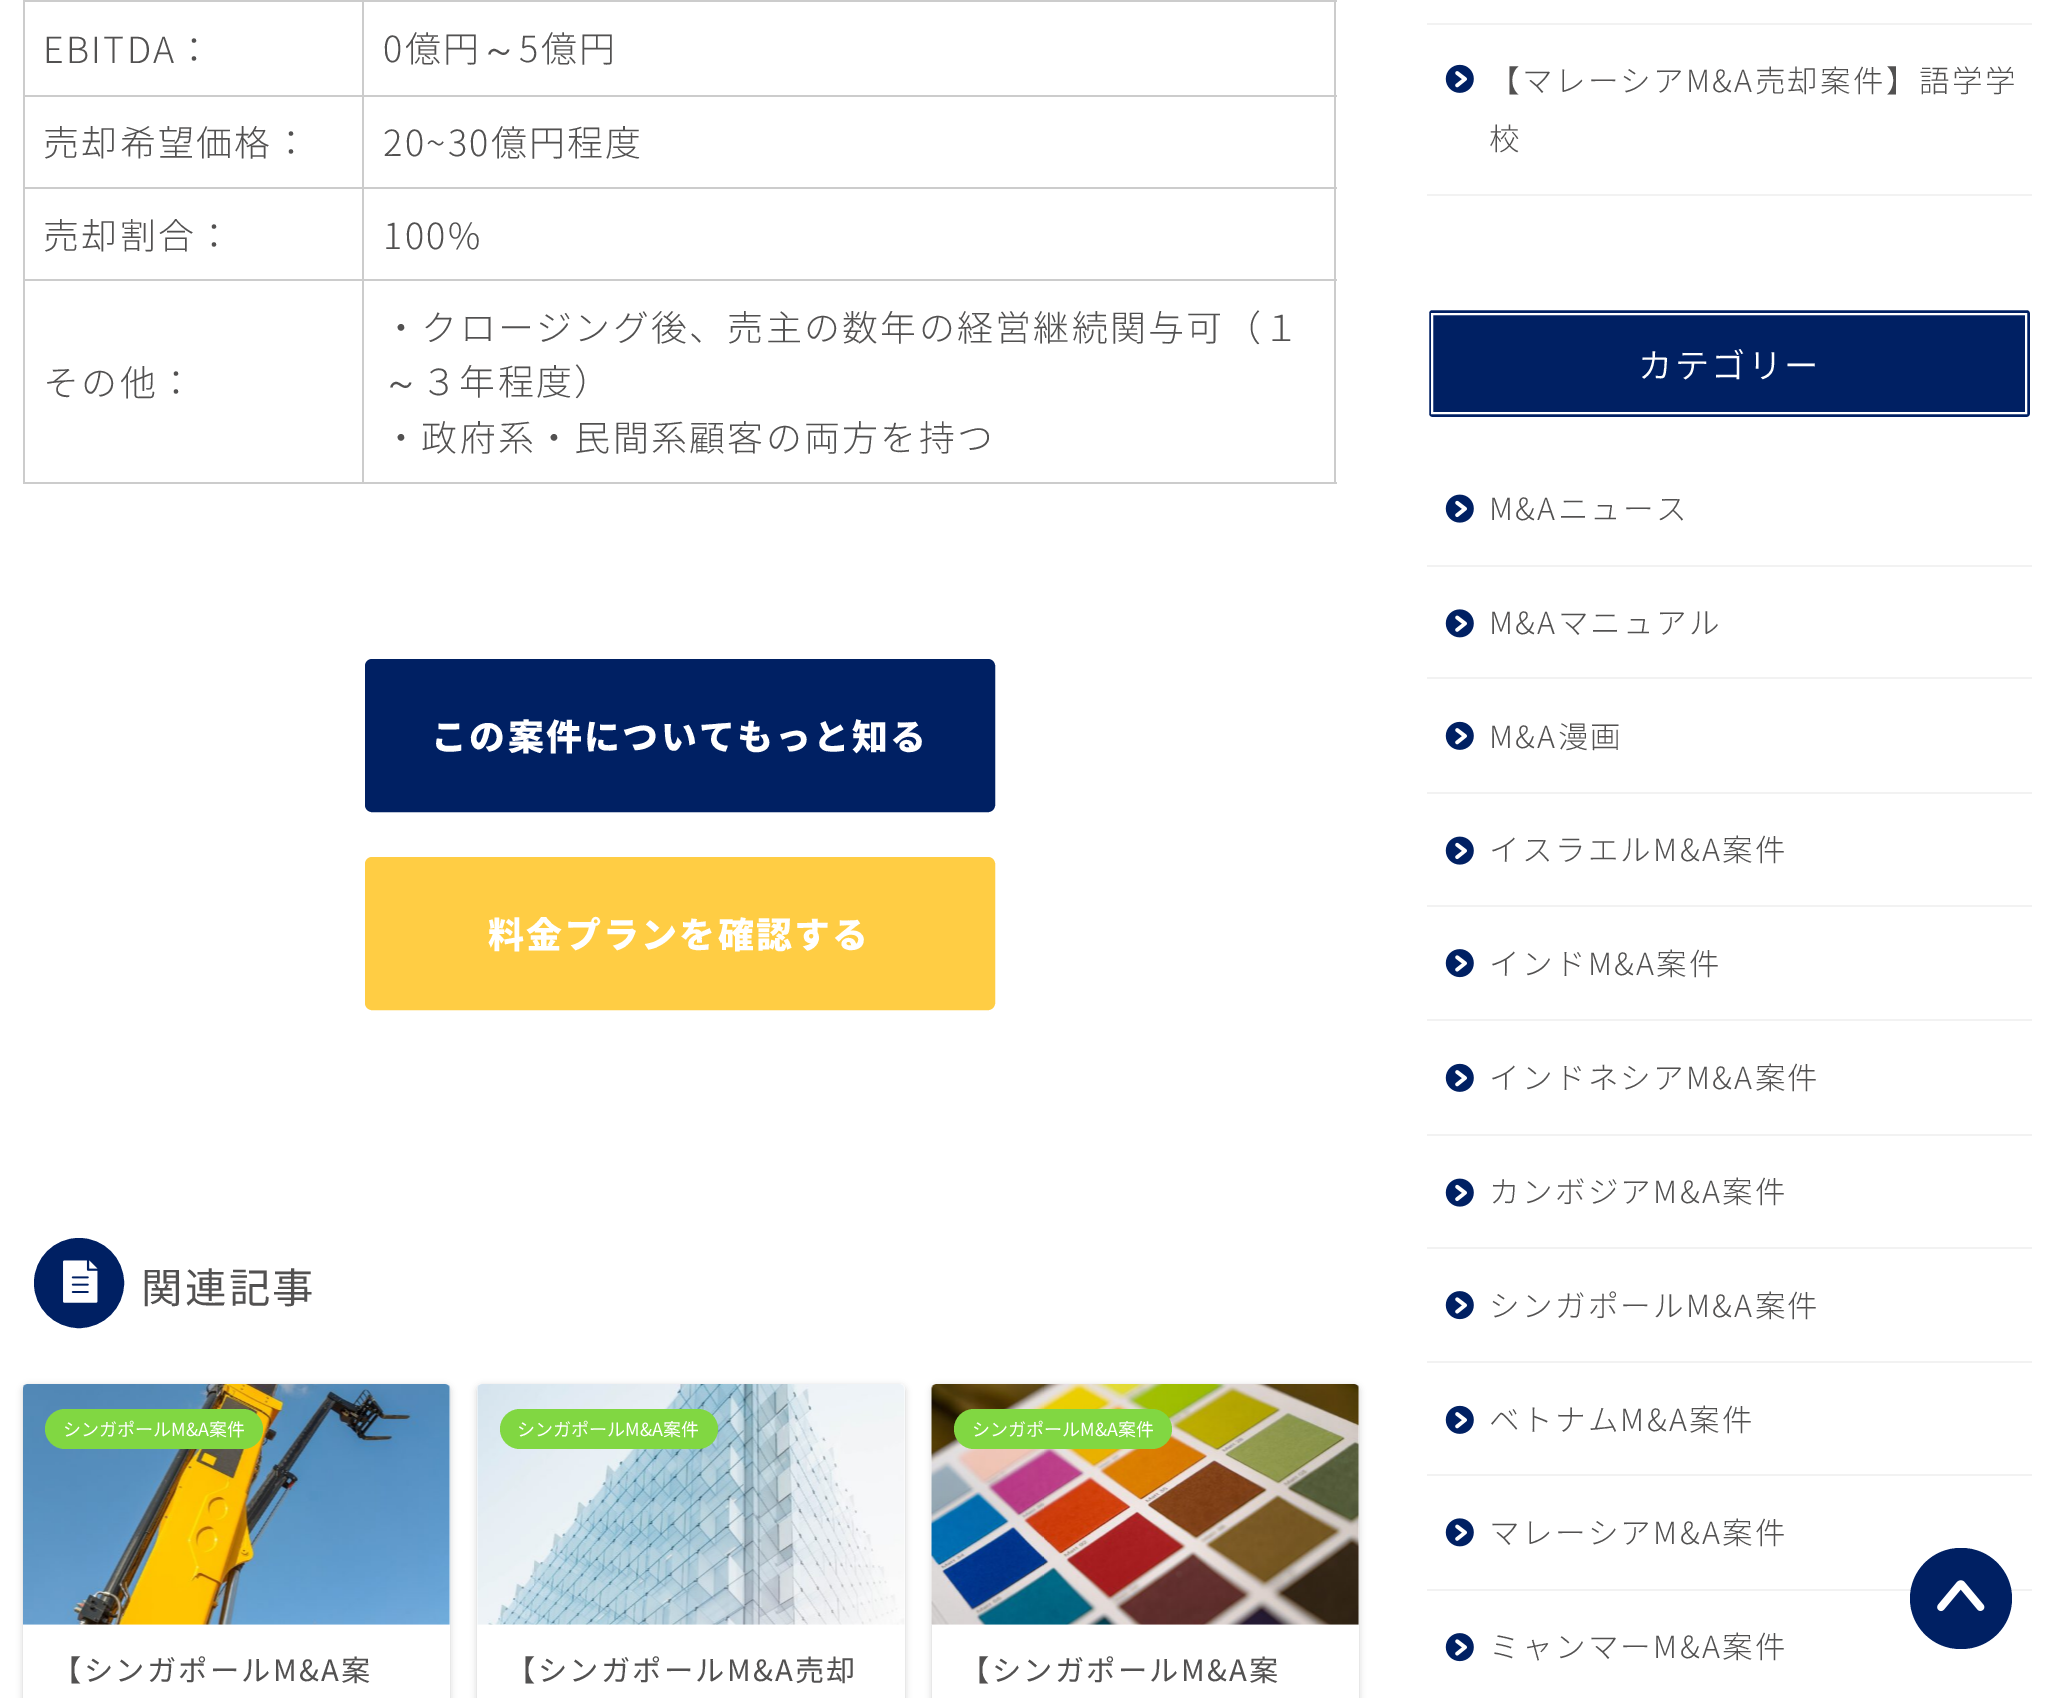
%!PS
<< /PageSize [2059 1698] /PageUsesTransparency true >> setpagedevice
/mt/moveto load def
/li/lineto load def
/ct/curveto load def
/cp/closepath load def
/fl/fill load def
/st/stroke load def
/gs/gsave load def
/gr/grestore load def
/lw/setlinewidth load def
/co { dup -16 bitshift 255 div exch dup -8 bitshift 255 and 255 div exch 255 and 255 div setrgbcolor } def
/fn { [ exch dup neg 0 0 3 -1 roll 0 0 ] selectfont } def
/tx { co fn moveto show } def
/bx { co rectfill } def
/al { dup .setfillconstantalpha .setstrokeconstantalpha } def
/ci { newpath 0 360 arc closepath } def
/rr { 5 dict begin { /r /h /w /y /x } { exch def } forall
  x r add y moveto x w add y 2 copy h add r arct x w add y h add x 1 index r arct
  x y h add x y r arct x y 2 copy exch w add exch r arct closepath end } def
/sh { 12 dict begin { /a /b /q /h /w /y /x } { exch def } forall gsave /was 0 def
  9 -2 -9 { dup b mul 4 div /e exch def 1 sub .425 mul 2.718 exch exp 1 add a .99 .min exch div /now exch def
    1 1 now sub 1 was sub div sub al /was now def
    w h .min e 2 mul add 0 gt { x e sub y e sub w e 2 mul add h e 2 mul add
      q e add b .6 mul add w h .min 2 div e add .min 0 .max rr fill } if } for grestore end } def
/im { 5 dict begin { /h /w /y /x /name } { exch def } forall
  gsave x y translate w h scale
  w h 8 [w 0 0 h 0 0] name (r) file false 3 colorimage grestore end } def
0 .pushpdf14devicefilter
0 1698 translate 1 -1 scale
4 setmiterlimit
0 0 2059 1698 16#FFFFFF bx
1334 0 2 484 16#CCCCCC bx
23 482 1314 2 16#CCCCCC bx
23 0 2 484 16#CCCCCC bx
362 0 975 2 16#CCCCCC bx
362 95 975 2 16#CCCCCC bx
362 187 975 2 16#CCCCCC bx
362 279 975 2 16#CCCCCC bx
362 279 2 205 16#CCCCCC bx
23 279 342 2 16#CCCCCC bx
362 187 2 94 16#CCCCCC bx
23 187 342 2 16#CCCCCC bx
362 95 2 94 16#CCCCCC bx
23 95 342 2 16#CCCCCC bx
362 0 2 97 16#CCCCCC bx
23 0 342 2 16#CCCCCC bx
16#002063 co
367.5 661.5 625 148 4.5 rr gs fl gr
5 lw
st
16#FFCD44 co
367.5 859.5 625 148 4.5 rr gs fl gr
st
16#002063 co
79 1283 44 ci gs fl gr
2 lw
st
(media/1.raw) 63 1260 35 43 im
gs
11 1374 mt 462 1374 li 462 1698 li 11 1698 li cp 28 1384 mt 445 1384 li 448 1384 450 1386 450 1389 ct 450 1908 li 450 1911 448 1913 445 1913 ct 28 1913 li 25 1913 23 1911 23 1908 ct 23 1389 li 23 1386 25 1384 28 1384 ct cp eoclip newpath
16#000000 co
23 1386 427 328 5 3.5 .18 sh
gr
(media/2.raw) 23 1384 428 241 im
16#81D742 co
45 1409 218 40 20 rr fl
16#000000 co
477 1386 428 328 5 3.5 .18 sh
16#FFFFFF co
477 1384 428 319 5 rr fl
(media/3.raw) 477 1384 428 241 im
16#81D742 co
500 1409 218 40 20 rr fl
gs
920 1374 mt 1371 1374 li 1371 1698 li 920 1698 li cp 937 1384 mt 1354 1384 li 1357 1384 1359 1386 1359 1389 ct 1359 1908 li 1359 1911 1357 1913 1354 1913 ct 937 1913 li 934 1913 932 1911 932 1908 ct 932 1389 li 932 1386 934 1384 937 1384 ct cp eoclip newpath
16#000000 co
932 1386 427 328 5 3.5 .18 sh
gr
(media/4.raw) 931 1384 428 241 im
954 1409 218 40 20 rr fl
1427 23 605 2 16#F2F2F2 bx
1427 194 605 2 16#F2F2F2 bx
(media/5.raw) 1445 64 29 29 im
16#002063 co
1428 309 603 109 4 rr gs fl gr
16#FFFFFF co
st
1432 314 594 99 rectstroke
1427 565 605 2 16#F2F2F2 bx
(media/6.raw) 1445 494 29 29 im
1427 677 605 2 16#F2F2F2 bx
(media/7.raw) 1445 609 29 29 im
1427 792 605 2 16#F2F2F2 bx
(media/5.raw) 1445 721 29 29 im
1427 905 605 2 16#F2F2F2 bx
(media/6.raw) 1445 836 29 29 im
1427 1019 605 2 16#F2F2F2 bx
(media/8.raw) 1445 949 29 29 im
1427 1134 605 2 16#F2F2F2 bx
(media/5.raw) 1445 1063 29 29 im
1427 1247 605 2 16#F2F2F2 bx
(media/6.raw) 1445 1178 29 29 im
1427 1361 605 2 16#F2F2F2 bx
(media/8.raw) 1445 1291 29 29 im
1427 1474 605 2 16#F2F2F2 bx
(media/5.raw) 1445 1405 29 29 im
1427 1589 605 2 16#F2F2F2 bx
(media/7.raw) 1445 1518 29 29 im
(media/8.raw) 1445 1633 29 29 im
16#002063 co
1910 1548 102 101 50.5 rr fl
(media/9.raw) 1937 1580 48 32 im
/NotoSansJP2-Light 36 fn
16#525151 co
43 63 mt 2.25 0 (EBITDA：) ashow
383 62 mt 2.25 0 (0億円) ashow
/WenQuanYiZenHei-Medium 36 fn
481 62 mt 2.25 0 (～) ashow
/NotoSansJP2-Light 36 fn
519 62 mt 2.25 0 (5億円) ashow
43 156 mt 2.25 0 (売却希望価格：) ashow
383 156 mt 2.25 0 (20~30億円程度) ashow
43 249 mt 2.25 0 (売却割合：) ashow
383 249 mt 2.25 0 (100%) ashow
43 396 mt 2.25 0 (その他：) ashow
383 341 mt 2.25 0 (・クロージング後、売主の数年の経営継続関与可（１) ashow
/WenQuanYiZenHei-Medium 36 fn
383 395 mt 2.25 0 (～) ashow
/NotoSansJP2-Light 36 fn
421 395 mt 2.25 0 (３年程度）) ashow
383 451 mt 2.25 0 (・政府系・民間系顧客の両方を持つ) ashow
/NotoSansJP-Black 36 fn
16#FFFFFF co
431 750 mt 2.25 0 (この案件についてもっと知る) ashow
488 948 mt 2.25 0 (料金プランを確認する) ashow
/NotoSansJP-Regular 41.5 fn
16#525151 co
141 1303 mt 2.25 0 (関連記事) ashow
(シンガポールM&A案件) 63 1436 /NotoSansJP-Regular 18 16#FFFFFF tx
/NotoSansJP-Regular 29.25 fn
16#525151 co
52 1681 mt 2.25 0 (【シンガポールM&A案) ashow
(シンガポールM&A案件) 517 1436 /NotoSansJP-Regular 18 16#FFFFFF tx
/NotoSansJP-Regular 29.25 fn
16#525151 co
506 1681 mt 2.25 0 (【シンガポールM&A売却) ashow
(シンガポールM&A案件) 972 1436 /NotoSansJP-Regular 18 16#FFFFFF tx
/NotoSansJP-Regular 29.25 fn
16#525151 co
960 1681 mt 2.25 0 (【シンガポールM&A案) ashow
/NotoSansJP2-Light 30.6 fn
1489 92 mt 2.25 0 (【マレーシアM&A売却案件】語学学) ashow
1489 150 mt 2.25 0 (校) ashow
/NotoSansJP-Light 34.25 fn
16#FFFFFF co
1638 378 mt 2.25 0 (カテゴリー) ashow
/NotoSansJP2-Light 30.6 fn
16#525151 co
1489 520 mt 2.25 0 (M&Aニュース) ashow
1489 634 mt 2.25 0 (M&Aマニュアル) ashow
1489 748 mt 2.25 0 (M&A漫画) ashow
1489 861 mt 2.25 0 (イスラエルM&A案件) ashow
1489 975 mt 2.25 0 (インドM&A案件) ashow
1489 1089 mt 2.25 0 (インドネシアM&A案件) ashow
1489 1203 mt 2.25 0 (カンボジアM&A案件) ashow
1489 1317 mt 2.25 0 (シンガポールM&A案件) ashow
1489 1431 mt 2.25 0 (ベトナムM&A案件) ashow
1489 1544 mt 2.25 0 (マレーシアM&A案件) ashow
1489 1658 mt 2.25 0 (ミャンマーM&A案件) ashow
.poppdf14devicefilter showpage
